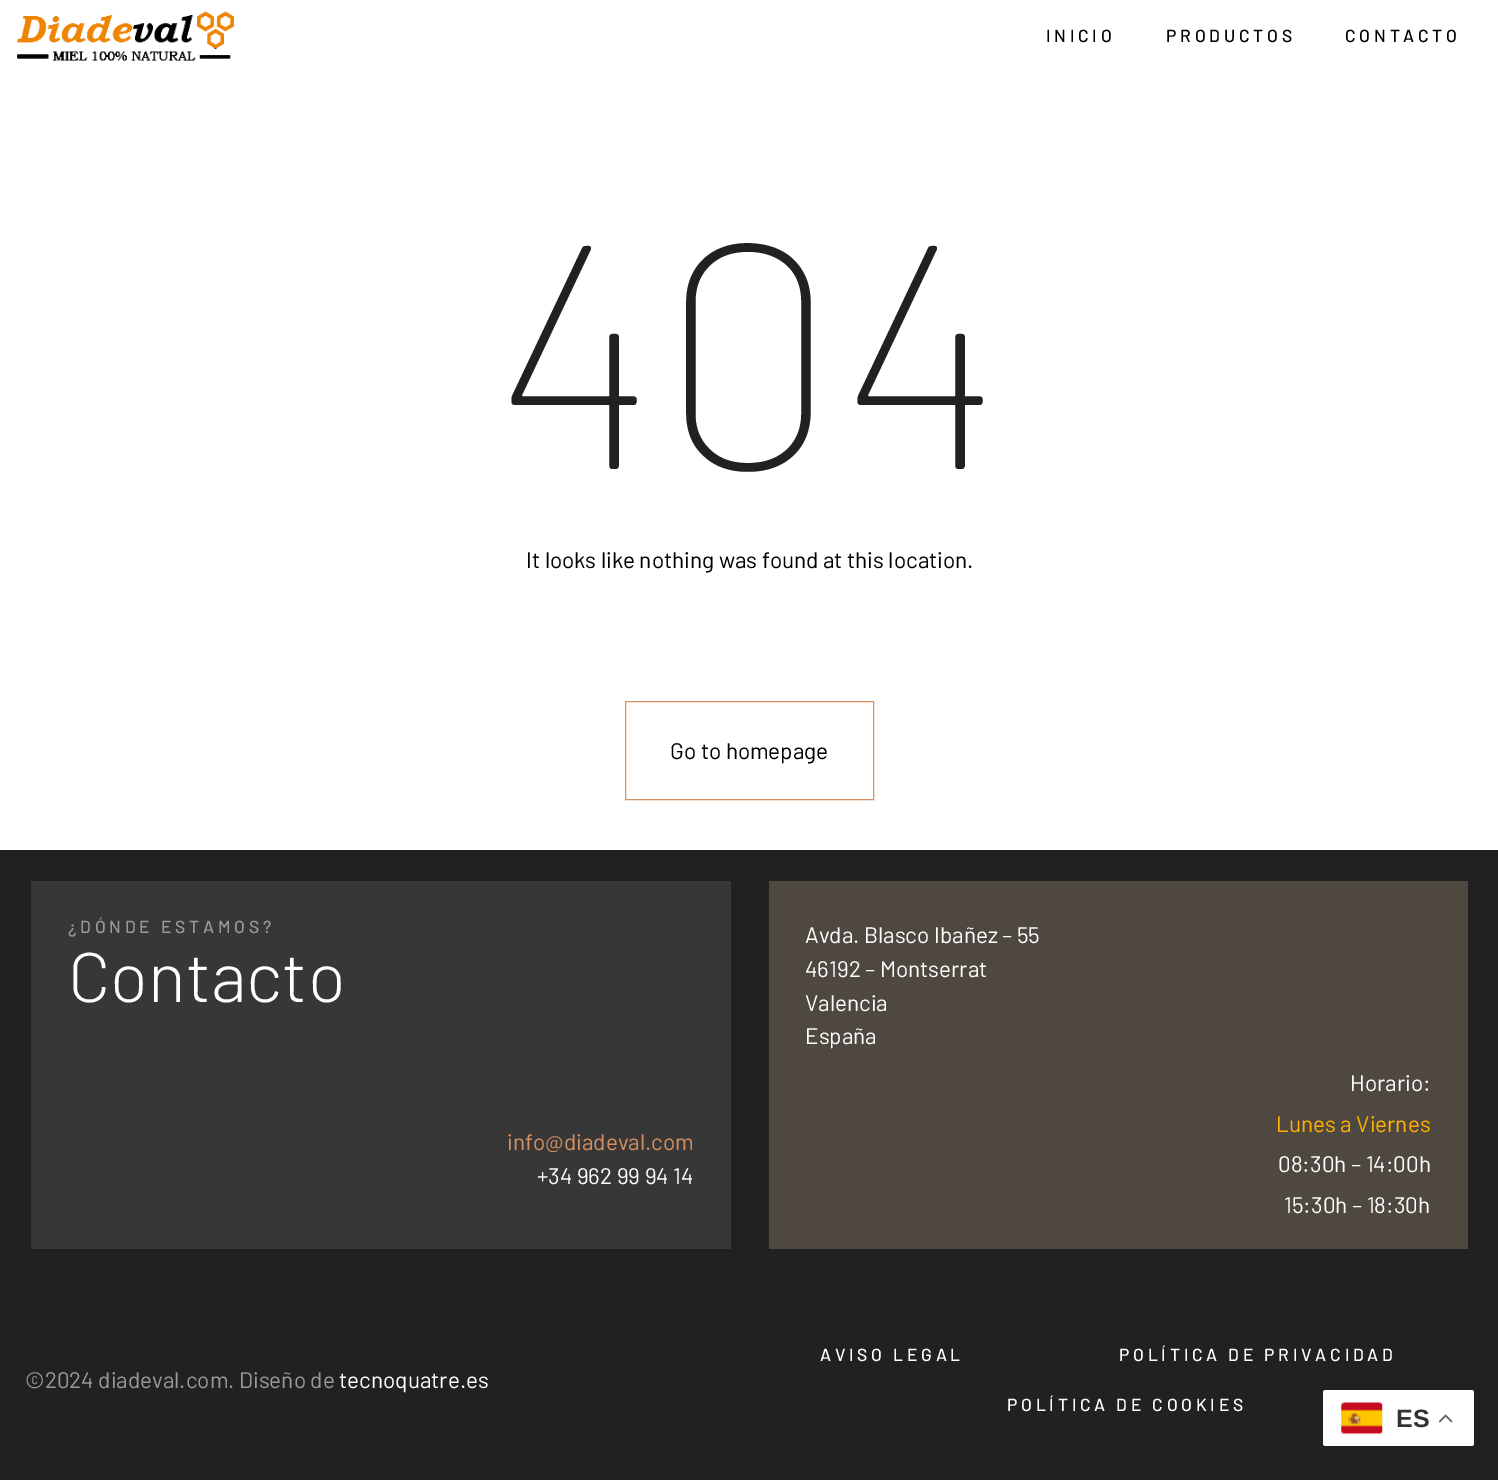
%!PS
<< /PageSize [1498 1480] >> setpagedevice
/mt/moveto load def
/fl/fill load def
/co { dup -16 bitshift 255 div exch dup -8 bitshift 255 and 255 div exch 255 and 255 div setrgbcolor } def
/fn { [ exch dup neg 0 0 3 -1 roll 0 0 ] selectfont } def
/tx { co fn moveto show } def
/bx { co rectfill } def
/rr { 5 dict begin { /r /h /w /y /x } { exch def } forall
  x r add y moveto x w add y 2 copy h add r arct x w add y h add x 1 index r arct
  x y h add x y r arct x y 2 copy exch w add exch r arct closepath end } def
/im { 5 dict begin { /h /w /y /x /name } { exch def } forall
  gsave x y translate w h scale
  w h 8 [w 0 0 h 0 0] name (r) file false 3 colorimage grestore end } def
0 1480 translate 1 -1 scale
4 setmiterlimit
0 0 1498 1480 16#FFFFFF bx
(media/1.raw) 17 11 217 50 im
16#D68F5E co
625.5 701.5 248 98 rectstroke
0 850 1498 630 16#212121 bx
31 881 700 368 16#373737 bx
769 881 699 368 16#4E4840 bx
16#FFFFFF co
1323 1390 151 56 2.5 rr fl
(media/2.raw) 1341 1402 42 32 im
(media/3.raw) 1439 1414 14 9 im
/Barlow-Medium 17.5 fn
16#000000 co
1046 42 mt 3.75 0 (INICIO) ashow
1166 42 mt 3.75 0 (PRODUCTOS) ashow
1345 42 mt 3.75 0 (CONTACTO) ashow
(404) 493 469 /Barlow-Thin 320 16#212121 tx
(It looks like nothing was found at this location.) 526 568 /Barlow-Regular 22.5 16#000000 tx
(Go to homepage) 670 759 /Barlow-Regular 22.5 16#000000 tx
/Barlow-Medium 17.5 fn
16#999999 co
68 933 mt 3.75 0 (¿DÓNDE ESTAMOS?) ashow
(Contacto) 68 1002 /Barlow-Light 70 16#FFFFFF tx
(info@diadeval.com) 507 1150 /Barlow-Regular 22.5 16#D68F5E tx
(+34 962 99 94 14) 537 1184 /Barlow-Regular 22.5 16#FFFFFF tx
(Avda. Blasco Ibañez – 55) 805 943 /Barlow-Regular 22.5 16#FFFFFF tx
(46192 – Montserrat) 805 977 /Barlow-Regular 22.5 16#FFFFFF tx
(Valencia) 805 1011 /Barlow-Regular 22.5 16#FFFFFF tx
(España) 805 1044 /Barlow-Regular 22.5 16#FFFFFF tx
(Horario:) 1350 1091 /Barlow-Regular 22.5 16#FFFFFF tx
(Lunes a Viernes) 1276 1132 /Barlow-Regular 22.5 16#FFB000 tx
(08:30h – 14:00h) 1278 1172 /Barlow-Regular 22.5 16#FFFFFF tx
(15:30h – 18:30h) 1284 1213 /Barlow-Regular 22.5 16#FFFFFF tx
(©2024 diadeval.com. Diseño de) 25 1388 /Barlow-Regular 22.5 16#999999 tx
(tecnoquatre.es) 339 1388 /Barlow-Regular 22.5 16#FFFFFF tx
/Barlow-Medium 17.5 fn
820 1361 mt 3.75 0 (AVISO LEGAL) ashow
1119 1361 mt 3.75 0 (POLÍTICA DE PRIVACIDAD) ashow
1007 1411 mt 3.75 0 (POLÍTICA DE COOKIES) ashow
(ES) 1396 1427 /LiberationSans-Bold 25 16#333333 tx
showpage
